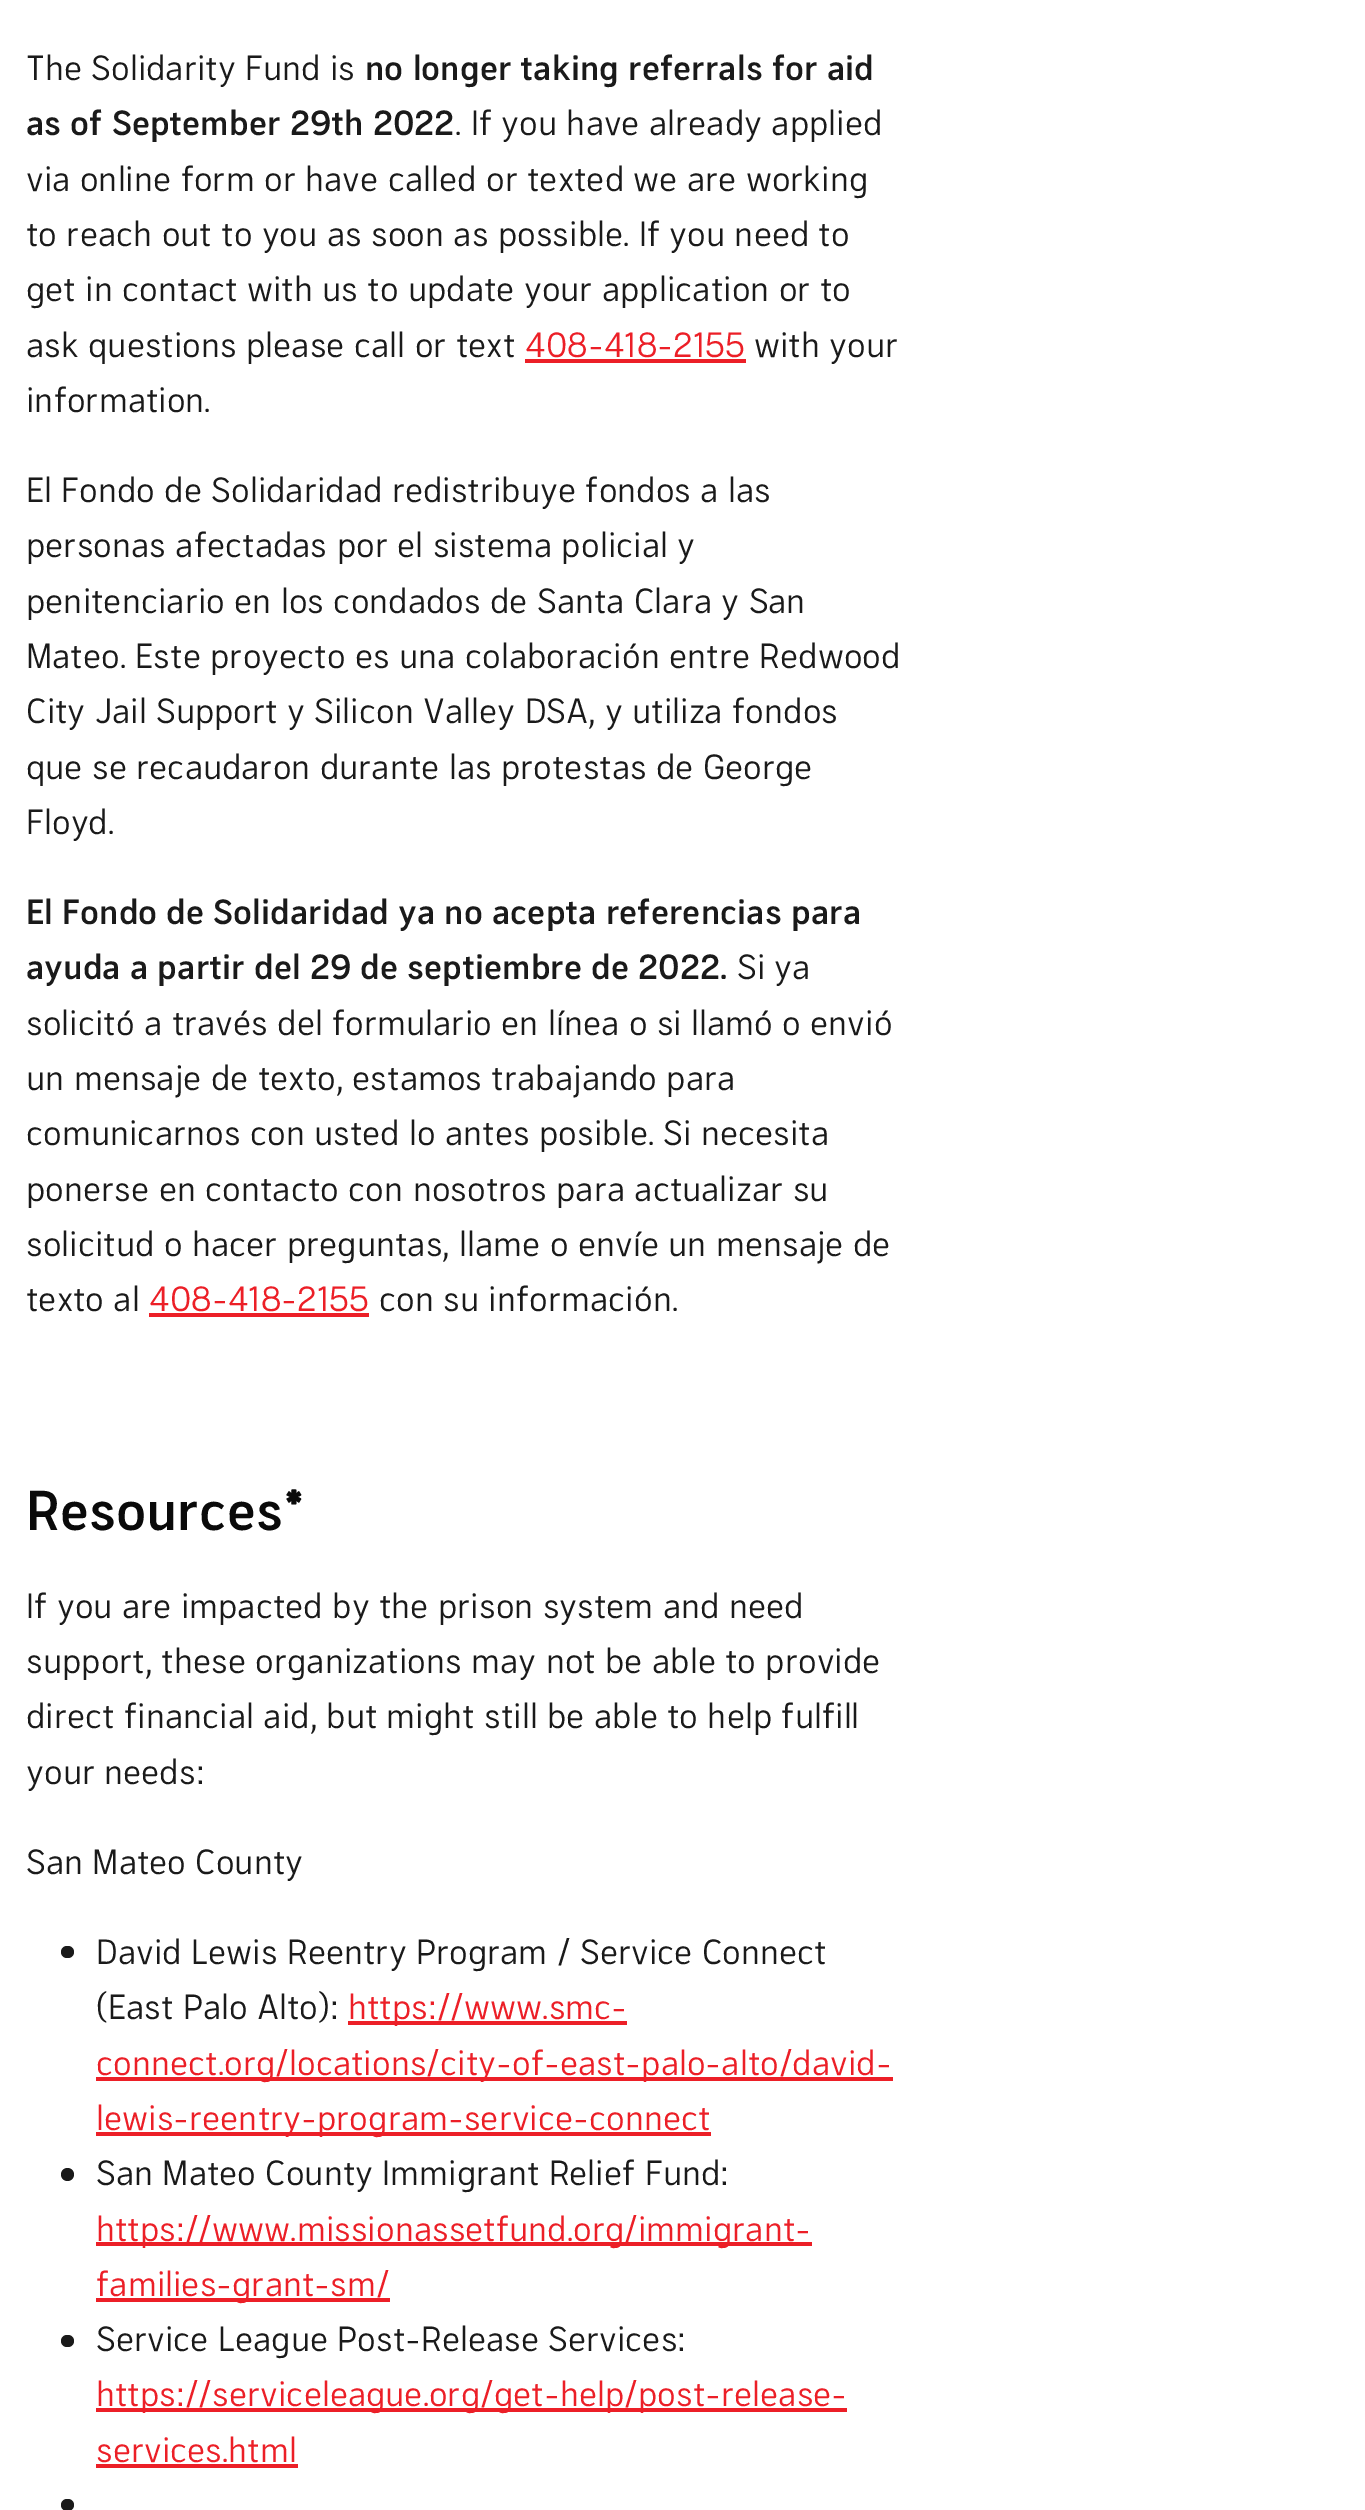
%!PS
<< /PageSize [1365 2510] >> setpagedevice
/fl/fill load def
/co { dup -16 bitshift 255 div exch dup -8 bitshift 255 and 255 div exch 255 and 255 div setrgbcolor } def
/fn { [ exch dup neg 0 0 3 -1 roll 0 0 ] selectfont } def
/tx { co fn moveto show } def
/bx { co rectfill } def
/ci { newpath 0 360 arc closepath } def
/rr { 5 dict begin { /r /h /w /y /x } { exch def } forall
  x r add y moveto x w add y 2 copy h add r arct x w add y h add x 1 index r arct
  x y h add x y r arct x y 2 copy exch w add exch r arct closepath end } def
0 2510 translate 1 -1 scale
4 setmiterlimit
0 0 1365 2510 16#FFFFFF bx
525 359 221 4 16#EC1F27 bx
149 1313 220 4 16#EC1F27 bx
16#1A1A1A co
61 1946 13 12 6 rr fl
348 2021 279 4 16#EC1F27 bx
96 2077 797 4 16#EC1F27 bx
96 2132 615 4 16#EC1F27 bx
16#1A1A1A co
67.5 2174.5 6.5 ci fl
96 2242 716 4 16#EC1F27 bx
96 2298 294 4 16#EC1F27 bx
16#1A1A1A co
61 2335 13 12 6 rr fl
96 2408 751 4 16#EC1F27 bx
96 2464 202 4 16#EC1F27 bx
16#1A1A1A co
61 2499 13 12 6 rr fl
(The Solidarity Fund is) 26 80 /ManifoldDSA-Medium 35 16#1A1A1A tx
(no longer taking referrals for aid) 365 80 /ManifoldDSA-Bold 35 16#1A1A1A tx
(as of September 29th 2022) 26 135 /ManifoldDSA-Bold 35 16#1A1A1A tx
(. If you have already applied) 455 135 /ManifoldDSA-Medium 35 16#1A1A1A tx
(via online form or have called or texted we are working) 26 191 /ManifoldDSA-Medium 35 16#1A1A1A tx
(to reach out to you as soon as possible. If you need to) 26 246 /ManifoldDSA-Medium 35 16#1A1A1A tx
(get in contact with us to update your application or to) 26 301 /ManifoldDSA-Medium 35 16#1A1A1A tx
(ask questions please call or text) 26 357 /ManifoldDSA-Medium 35 16#1A1A1A tx
(408-418-2155) 525 357 /ManifoldDSA-Medium 35 16#EC1F27 tx
(with your) 754 357 /ManifoldDSA-Medium 35 16#1A1A1A tx
(information.) 26 412 /ManifoldDSA-Medium 35 16#1A1A1A tx
(El Fondo de Solidaridad redistribuye fondos a las) 26 502 /ManifoldDSA-Medium 35 16#1A1A1A tx
(personas afectadas por el sistema policial y) 26 557 /ManifoldDSA-Medium 35 16#1A1A1A tx
(penitenciario en los condados de Santa Clara y San) 26 613 /ManifoldDSA-Medium 35 16#1A1A1A tx
(Mateo. Este proyecto es una colaboración entre Redwood) 26 668 /ManifoldDSA-Medium 35 16#1A1A1A tx
(City Jail Support y Silicon Valley DSA, y utiliza fondos) 26 723 /ManifoldDSA-Medium 35 16#1A1A1A tx
(que se recaudaron durante las protestas de George) 26 779 /ManifoldDSA-Medium 35 16#1A1A1A tx
(Floyd.) 26 834 /ManifoldDSA-Medium 35 16#1A1A1A tx
(El Fondo de Solidaridad ya no acepta referencias para) 26 924 /ManifoldDSA-Bold 35 16#1A1A1A tx
(ayuda a partir del 29 de septiembre de 2022.) 26 979 /ManifoldDSA-Bold 35 16#1A1A1A tx
(Si ya) 737 979 /ManifoldDSA-Medium 35 16#1A1A1A tx
(solicitó a través del formulario en línea o si llamó o envió) 26 1035 /ManifoldDSA-Medium 35 16#1A1A1A tx
(un mensaje de texto, estamos trabajando para) 26 1090 /ManifoldDSA-Medium 35 16#1A1A1A tx
(comunicarnos con usted lo antes posible. Si necesita) 26 1145 /ManifoldDSA-Medium 35 16#1A1A1A tx
(ponerse en contacto con nosotros para actualizar su) 26 1201 /ManifoldDSA-Medium 35 16#1A1A1A tx
(solicitud o hacer preguntas, llame o envíe un mensaje de) 26 1256 /ManifoldDSA-Medium 35 16#1A1A1A tx
(texto al) 26 1311 /ManifoldDSA-Medium 35 16#1A1A1A tx
(408-418-2155) 149 1311 /ManifoldDSA-Medium 35 16#EC1F27 tx
(con su información.) 379 1311 /ManifoldDSA-Medium 35 16#1A1A1A tx
(Resources*) 26 1530 /ManifoldDSA-Bold 56 16#0A0A0A tx
(If you are impacted by the prison system and need) 26 1618 /ManifoldDSA-Medium 35 16#1A1A1A tx
(support, these organizations may not be able to provide) 26 1673 /ManifoldDSA-Medium 35 16#1A1A1A tx
(direct financial aid, but might still be able to help fulfill) 26 1728 /ManifoldDSA-Medium 35 16#1A1A1A tx
(your needs:) 26 1784 /ManifoldDSA-Medium 35 16#1A1A1A tx
(San Mateo County) 26 1874 /ManifoldDSA-Medium 35 16#1A1A1A tx
(David Lewis Reentry Program / Service Connect) 96 1964 /ManifoldDSA-Medium 35 16#1A1A1A tx
(\(East Palo Alto\):) 96 2019 /ManifoldDSA-Medium 35 16#1A1A1A tx
(https://www.smc-) 348 2019 /ManifoldDSA-Medium 35 16#EC1F27 tx
(connect.org/locations/city-of-east-palo-alto/david-) 96 2075 /ManifoldDSA-Medium 35 16#EC1F27 tx
(lewis-reentry-program-service-connect) 96 2130 /ManifoldDSA-Medium 35 16#EC1F27 tx
(San Mateo County Immigrant Relief Fund:) 96 2185 /ManifoldDSA-Medium 35 16#1A1A1A tx
(https://www.missionassetfund.org/immigrant-) 96 2241 /ManifoldDSA-Medium 35 16#EC1F27 tx
(families-grant-sm/) 96 2296 /ManifoldDSA-Medium 35 16#EC1F27 tx
(Service League Post-Release Services:) 96 2351 /ManifoldDSA-Medium 35 16#1A1A1A tx
(https://serviceleague.org/get-help/post-release-) 96 2406 /ManifoldDSA-Medium 35 16#EC1F27 tx
(services.html) 96 2462 /ManifoldDSA-Medium 35 16#EC1F27 tx
showpage
